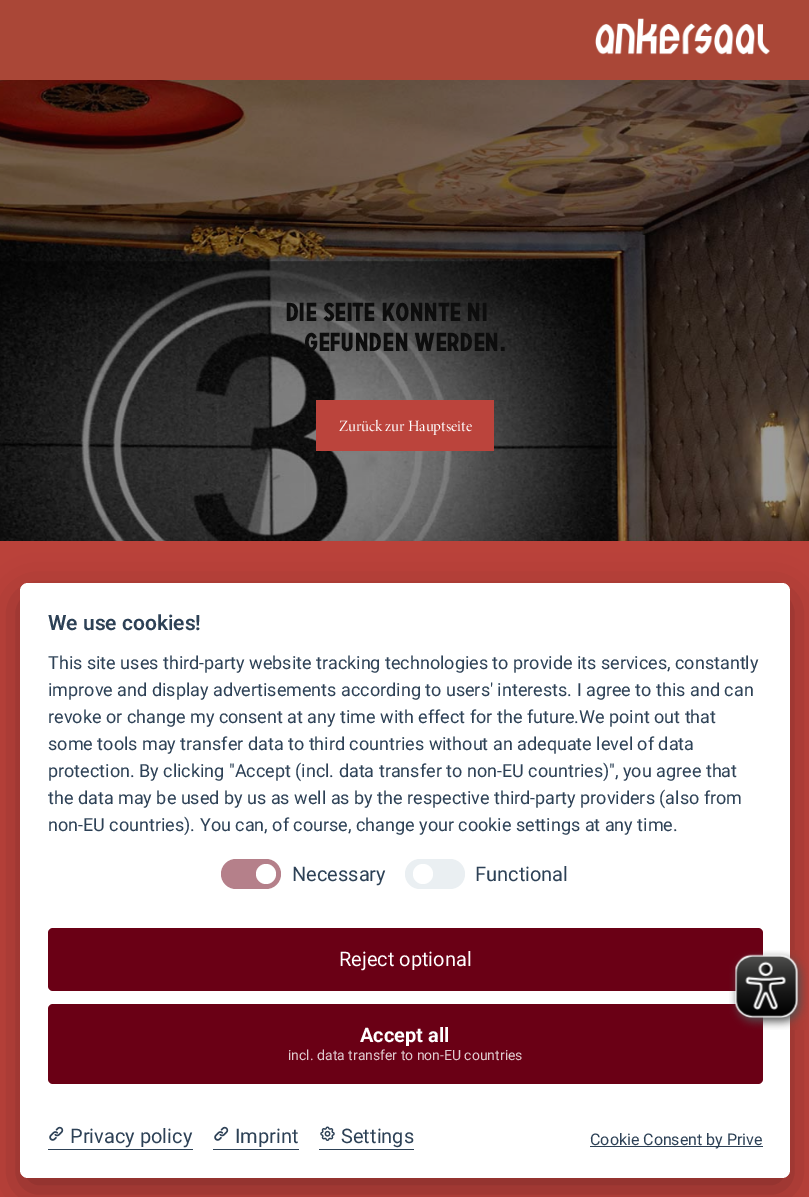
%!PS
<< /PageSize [809 1197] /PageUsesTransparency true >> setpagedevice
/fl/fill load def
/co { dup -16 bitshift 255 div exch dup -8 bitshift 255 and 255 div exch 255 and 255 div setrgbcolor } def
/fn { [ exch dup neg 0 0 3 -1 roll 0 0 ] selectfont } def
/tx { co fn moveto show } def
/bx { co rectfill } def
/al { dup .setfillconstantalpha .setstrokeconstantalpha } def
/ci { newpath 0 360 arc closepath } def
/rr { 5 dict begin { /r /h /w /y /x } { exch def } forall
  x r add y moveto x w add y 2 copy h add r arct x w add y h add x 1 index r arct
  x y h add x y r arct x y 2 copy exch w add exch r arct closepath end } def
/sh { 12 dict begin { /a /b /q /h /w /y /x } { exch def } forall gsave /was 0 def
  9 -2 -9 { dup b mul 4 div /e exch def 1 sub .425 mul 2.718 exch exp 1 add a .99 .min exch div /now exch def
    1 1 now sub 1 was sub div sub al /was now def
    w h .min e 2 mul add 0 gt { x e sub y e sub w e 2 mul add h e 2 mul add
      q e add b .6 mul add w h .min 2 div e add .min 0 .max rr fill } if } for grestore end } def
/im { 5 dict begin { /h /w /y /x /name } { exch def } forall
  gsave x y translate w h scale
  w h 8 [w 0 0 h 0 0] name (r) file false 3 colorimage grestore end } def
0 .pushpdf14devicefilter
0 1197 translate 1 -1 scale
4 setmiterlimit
0 0 809 1197 16#FFFFFF bx
(media/1.raw) 0 80 809 461 im
0 0 809 80 16#AA4737 bx
(media/2.raw) 595 18 175 37 im
316 400 178 51 16#BB443C bx
0 541 809 656 16#BA423A bx
16#020203 co
20 595 770 595 8 19 .28 sh
16#FFFFFF co
20 583 770 595 8 rr fl
16#B5808A co
221 859 60 30 15 rr fl
16#FFFFFF co
266 874 10 ci fl
16#EAEFF2 co
405 859 60 30 15 rr fl
16#FFFFFF co
423 874 10 ci fl
16#6A0015 co
48 928 715 63 5 rr fl
48 1004 715 80 5 rr fl
48 1149 145 1 16#2D4156 bx
(media/3.raw) 49 1126 15 15 im
213 1149 86 1 16#2D4156 bx
(media/3.raw) 214 1126 15 15 im
319 1149 95 1 16#2D4156 bx
(media/4.raw) 320 1126 15 15 im
590 1146 173 1 16#2D4156 bx
(media/5.raw) 729 950 79 80 im
(Die Seite konnte ni) 285 321 /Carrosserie-Bold 25 16#0D0D0D tx
(gefunden werden.) 304 351 /Carrosserie-Bold 25 16#0D0D0D tx
(Zurück zur Hauptseite) 339 431 /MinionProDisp-Regular 15.75 16#FFFFFF tx
(We use cookies!) 48 630 /Roboto-SemiBold 21 16#2D4156 tx
(This site uses third-party website tracking technologies to provide its services, constantly) 48 669 /Roboto-Regular 18 16#2D4156 tx
(improve and display advertisements according to users' interests. I agree to this and can) 48 696 /Roboto-Regular 18 16#2D4156 tx
(revoke or change my consent at any time with effect for the future.We point out that) 48 723 /Roboto-Regular 18 16#2D4156 tx
(some tools may transfer data to third countries without an adequate level of data) 48 750 /Roboto-Regular 18 16#2D4156 tx
(protection. By clicking "Accept \(incl. data transfer to non-EU countries\)", you agree that) 48 777 /Roboto-Regular 18 16#2D4156 tx
(the data may be used by us as well as by the respective third-party providers \(also from) 48 804 /Roboto-Regular 18 16#2D4156 tx
(non-EU countries\). You can, of course, change your cookie settings at any time.) 48 831 /Roboto-Regular 18 16#2D4156 tx
(Necessary) 292 881 /Roboto-Regular 20 16#2D4156 tx
(Functional) 475 881 /Roboto-Regular 20 16#2D4156 tx
(Reject optional) 339 966 /Roboto-Regular 20 16#FFFFFF tx
(Accept all) 360 1042 /Roboto-Bold 20 16#FFFFFF tx
(incl. data transfer to non-EU countries) 288 1060 /Roboto-Regular 14 16#E1CCD0 tx
(Privacy policy) 70 1143 /Roboto-Regular 20 16#2D4156 tx
(Imprint) 235 1143 /Roboto-Regular 20 16#2D4156 tx
(Settings) 341 1143 /Roboto-Regular 20 16#2D4156 tx
(Cookie Consent by Prive) 590 1145 /Roboto-Regular 16 16#2D4156 tx
.poppdf14devicefilter showpage
